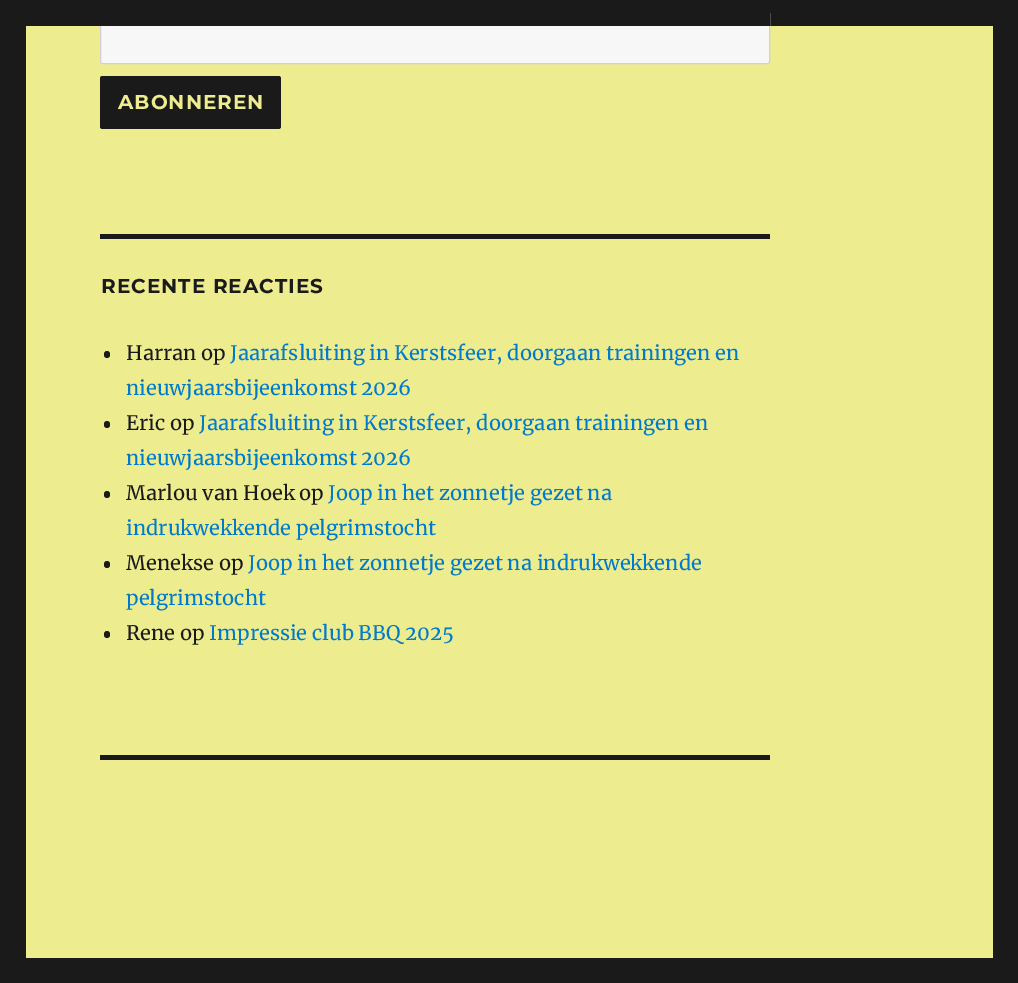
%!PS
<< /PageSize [1018 983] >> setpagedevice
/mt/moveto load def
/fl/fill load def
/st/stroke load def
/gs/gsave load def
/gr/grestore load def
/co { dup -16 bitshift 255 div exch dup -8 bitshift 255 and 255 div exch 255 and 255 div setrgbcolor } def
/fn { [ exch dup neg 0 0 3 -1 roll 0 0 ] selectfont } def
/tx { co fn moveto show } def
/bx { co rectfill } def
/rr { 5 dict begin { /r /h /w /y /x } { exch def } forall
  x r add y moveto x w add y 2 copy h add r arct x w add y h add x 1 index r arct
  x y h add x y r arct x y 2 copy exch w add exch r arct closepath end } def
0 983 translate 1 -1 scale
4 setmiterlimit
0 0 1018 983 16#1A1A1A bx
26 26 967 932 16#EDED90 bx
16#F7F7F7 co
100.5 11.5 669 52 2 rr gs fl gr
16#D1D1D1 co
st
100 11 670 15 16#1A1A1A bx
100 76 181 53 2.5 rr fl
100 234 670 5 16#1A1A1A bx
104 351 6 7 3 rr fl
104 421 6 7 3 rr fl
104 491 6 7 3 rr fl
104 561 6 7 3 rr fl
104 631 6 7 3 rr fl
100 755 670 5 16#1A1A1A bx
/Montserrat-Thin 20 fn
16#EDED90 co
118 109 mt 1 0 (ABONNEREN) ashow
16#1A1A1A co
101 293 mt 1 0 (RECENTE REACTIES) ashow
(Harran op) 126 360 /Merriweather-Regular 20 16#1A1A1A tx
(Jaarafsluiting in Kerstsfeer, doorgaan trainingen en) 230 360 /Merriweather-Regular 20 16#007ACC tx
(nieuwjaarsbijeenkomst 2026) 126 395 /Merriweather-Regular 20 16#007ACC tx
(Eric op) 126 430 /Merriweather-Regular 20 16#1A1A1A tx
(Jaarafsluiting in Kerstsfeer, doorgaan trainingen en) 199 430 /Merriweather-Regular 20 16#007ACC tx
(nieuwjaarsbijeenkomst 2026) 126 465 /Merriweather-Regular 20 16#007ACC tx
(Marlou van Hoek op) 126 500 /Merriweather-Regular 20 16#1A1A1A tx
(Joop in het zonnetje gezet na) 328 500 /Merriweather-Regular 20 16#007ACC tx
(indrukwekkende pelgrimstocht) 126 535 /Merriweather-Regular 20 16#007ACC tx
(Menekse op) 126 570 /Merriweather-Regular 20 16#1A1A1A tx
(Joop in het zonnetje gezet na indrukwekkende) 248 570 /Merriweather-Regular 20 16#007ACC tx
(pelgrimstocht) 126 605 /Merriweather-Regular 20 16#007ACC tx
(Rene op) 126 640 /Merriweather-Regular 20 16#1A1A1A tx
(Impressie club BBQ 2025) 209 640 /Merriweather-Regular 20 16#007ACC tx
showpage
